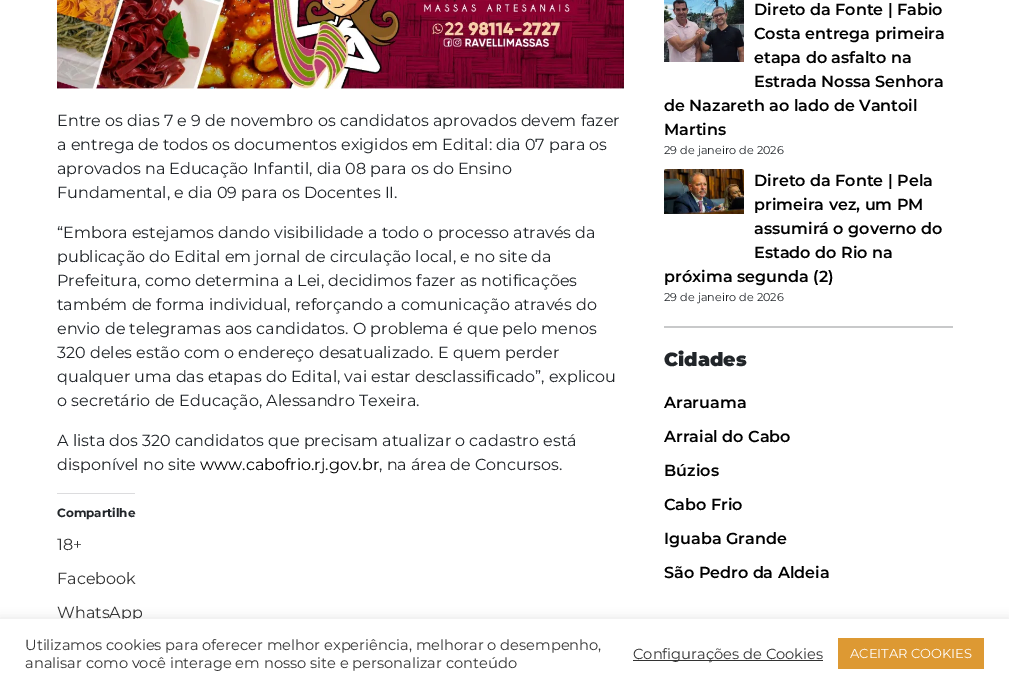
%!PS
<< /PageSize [1009 688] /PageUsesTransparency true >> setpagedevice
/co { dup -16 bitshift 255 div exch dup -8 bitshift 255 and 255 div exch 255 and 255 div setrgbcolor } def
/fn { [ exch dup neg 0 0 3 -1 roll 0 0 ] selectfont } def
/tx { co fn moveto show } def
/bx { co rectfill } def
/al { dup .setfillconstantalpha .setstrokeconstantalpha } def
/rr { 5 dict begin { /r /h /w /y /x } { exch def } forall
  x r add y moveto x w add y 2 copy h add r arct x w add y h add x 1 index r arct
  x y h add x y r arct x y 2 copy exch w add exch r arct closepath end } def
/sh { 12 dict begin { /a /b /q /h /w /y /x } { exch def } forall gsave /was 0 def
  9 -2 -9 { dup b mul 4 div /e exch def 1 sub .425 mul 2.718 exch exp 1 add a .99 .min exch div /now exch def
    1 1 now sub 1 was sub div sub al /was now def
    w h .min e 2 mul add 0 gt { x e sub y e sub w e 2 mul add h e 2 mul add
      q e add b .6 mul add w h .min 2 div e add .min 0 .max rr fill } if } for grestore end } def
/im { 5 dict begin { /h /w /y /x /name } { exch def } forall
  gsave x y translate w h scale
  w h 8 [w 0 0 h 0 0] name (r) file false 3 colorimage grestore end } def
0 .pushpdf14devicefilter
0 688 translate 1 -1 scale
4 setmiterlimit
0 0 1009 688 16#FFFFFF bx
(media/1.raw) 57 0 567 89 im
57 493 78 1 16#DCDCDE bx
(media/2.raw) 664 0 80 62 im
(media/3.raw) 664 169 80 45 im
664 326 289 2 16#C8C9CA bx
16#ACABAB co
0 618 1009 69 0 5 .3 sh
(Entre os dias 7 e 9 de novembro os candidatos aprovados devem fazer) 57 126 /Montserrat-Regular 16 16#212529 tx
(a entrega de todos os documentos exigidos em Edital: dia 07 para os) 57 150 /Montserrat-Regular 16 16#212529 tx
(aprovados na Educação Infantil, dia 08 para os do Ensino) 57 174 /Montserrat-Regular 16 16#212529 tx
(Fundamental, e dia 09 para os Docentes II.) 57 198 /Montserrat-Regular 16 16#212529 tx
(“Embora estejamos dando visibilidade a todo o processo através da) 57 238 /Montserrat-Regular 16 16#212529 tx
(publicação do Edital em jornal de circulação local, e no site da) 57 262 /Montserrat-Regular 16 16#212529 tx
(Prefeitura, como determina a Lei, decidimos fazer as notificações) 57 286 /Montserrat-Regular 16 16#212529 tx
(também de forma individual, reforçando a comunicação através do) 57 310 /Montserrat-Regular 16 16#212529 tx
(envio de telegramas aos candidatos. O problema é que pelo menos) 57 334 /Montserrat-Regular 16 16#212529 tx
(320 deles estão com o endereço desatualizado. E quem perder) 57 358 /Montserrat-Regular 16 16#212529 tx
(qualquer uma das etapas do Edital, vai estar desclassificado”, explicou) 57 382 /Montserrat-Regular 16 16#212529 tx
(o secretário de Educação, Alessandro Texeira.) 57 406 /Montserrat-Regular 16 16#212529 tx
(A lista dos 320 candidatos que precisam atualizar o cadastro está) 57 446 /Montserrat-Regular 16 16#212529 tx
(disponível no site) 57 470 /Montserrat-Regular 16 16#212529 tx
(www.cabofrio.rj.gov.br) 200 470 /Montserrat-Regular 16 16#000000 tx
(, na área de Concursos.) 379 470 /Montserrat-Regular 16 16#212529 tx
(Compartilhe) 57 517 /Montserrat-Bold 12 16#212529 tx
(18+) 57 550 /Montserrat-Regular 16 16#333333 tx
(Facebook) 57 584 /Montserrat-Regular 16 16#333333 tx
(WhatsApp) 57 618 /Montserrat-Regular 16 16#333333 tx
(Direto da Fonte | Fabio) 754 15 /Montserrat-SemiBold 16 16#000000 tx
(Costa entrega primeira) 754 39 /Montserrat-SemiBold 16 16#000000 tx
(etapa do asfalto na) 754 63 /Montserrat-SemiBold 16 16#000000 tx
(Estrada Nossa Senhora) 754 87 /Montserrat-SemiBold 16 16#000000 tx
(de Nazareth ao lado de Vantoil) 664 111 /Montserrat-SemiBold 16 16#000000 tx
(Martins) 664 135 /Montserrat-SemiBold 16 16#000000 tx
(29 de janeiro de 2026) 664 154 /Montserrat-Regular 11.25 16#212529 tx
(Direto da Fonte | Pela) 754 186 /Montserrat-SemiBold 16 16#000000 tx
(primeira vez, um PM) 754 210 /Montserrat-SemiBold 16 16#000000 tx
(assumirá o governo do) 754 234 /Montserrat-SemiBold 16 16#000000 tx
(Estado do Rio na) 754 258 /Montserrat-SemiBold 16 16#000000 tx
(próxima segunda \(2\)) 664 282 /Montserrat-SemiBold 16 16#000000 tx
(29 de janeiro de 2026) 664 301 /Montserrat-Regular 11.25 16#212529 tx
(Cidades) 664 366 /Montserrat-Black 19 16#212529 tx
(Araruama) 664 408 /Montserrat-SemiBold 16 16#000000 tx
(Arraial do Cabo) 664 442 /Montserrat-SemiBold 16 16#000000 tx
(Búzios) 664 476 /Montserrat-SemiBold 16 16#000000 tx
(Cabo Frio) 664 510 /Montserrat-SemiBold 16 16#000000 tx
(Iguaba Grande) 664 544 /Montserrat-SemiBold 16 16#000000 tx
(São Pedro da Aldeia) 664 578 /Montserrat-SemiBold 16 16#000000 tx
0 619 1009 69 16#FFFFFF bx
(Utilizamos cookies para oferecer melhor experiência, melhorar o desempenho,) 25 650 /Montserrat-Regular 14.65 16#333333 tx
(analisar como você interage em nosso site e personalizar conteúdo) 25 668 /Montserrat-Regular 14.65 16#333333 tx
633 660 190 1 16#333333 bx
(Configurações de Cookies) 633 659 /Montserrat-Regular 14.65 16#333333 tx
838 638 146 31 16#DD9933 bx
(ACEITAR COOKIES) 850 658 /Montserrat-Regular 13 16#FFFFFF tx
.poppdf14devicefilter showpage
